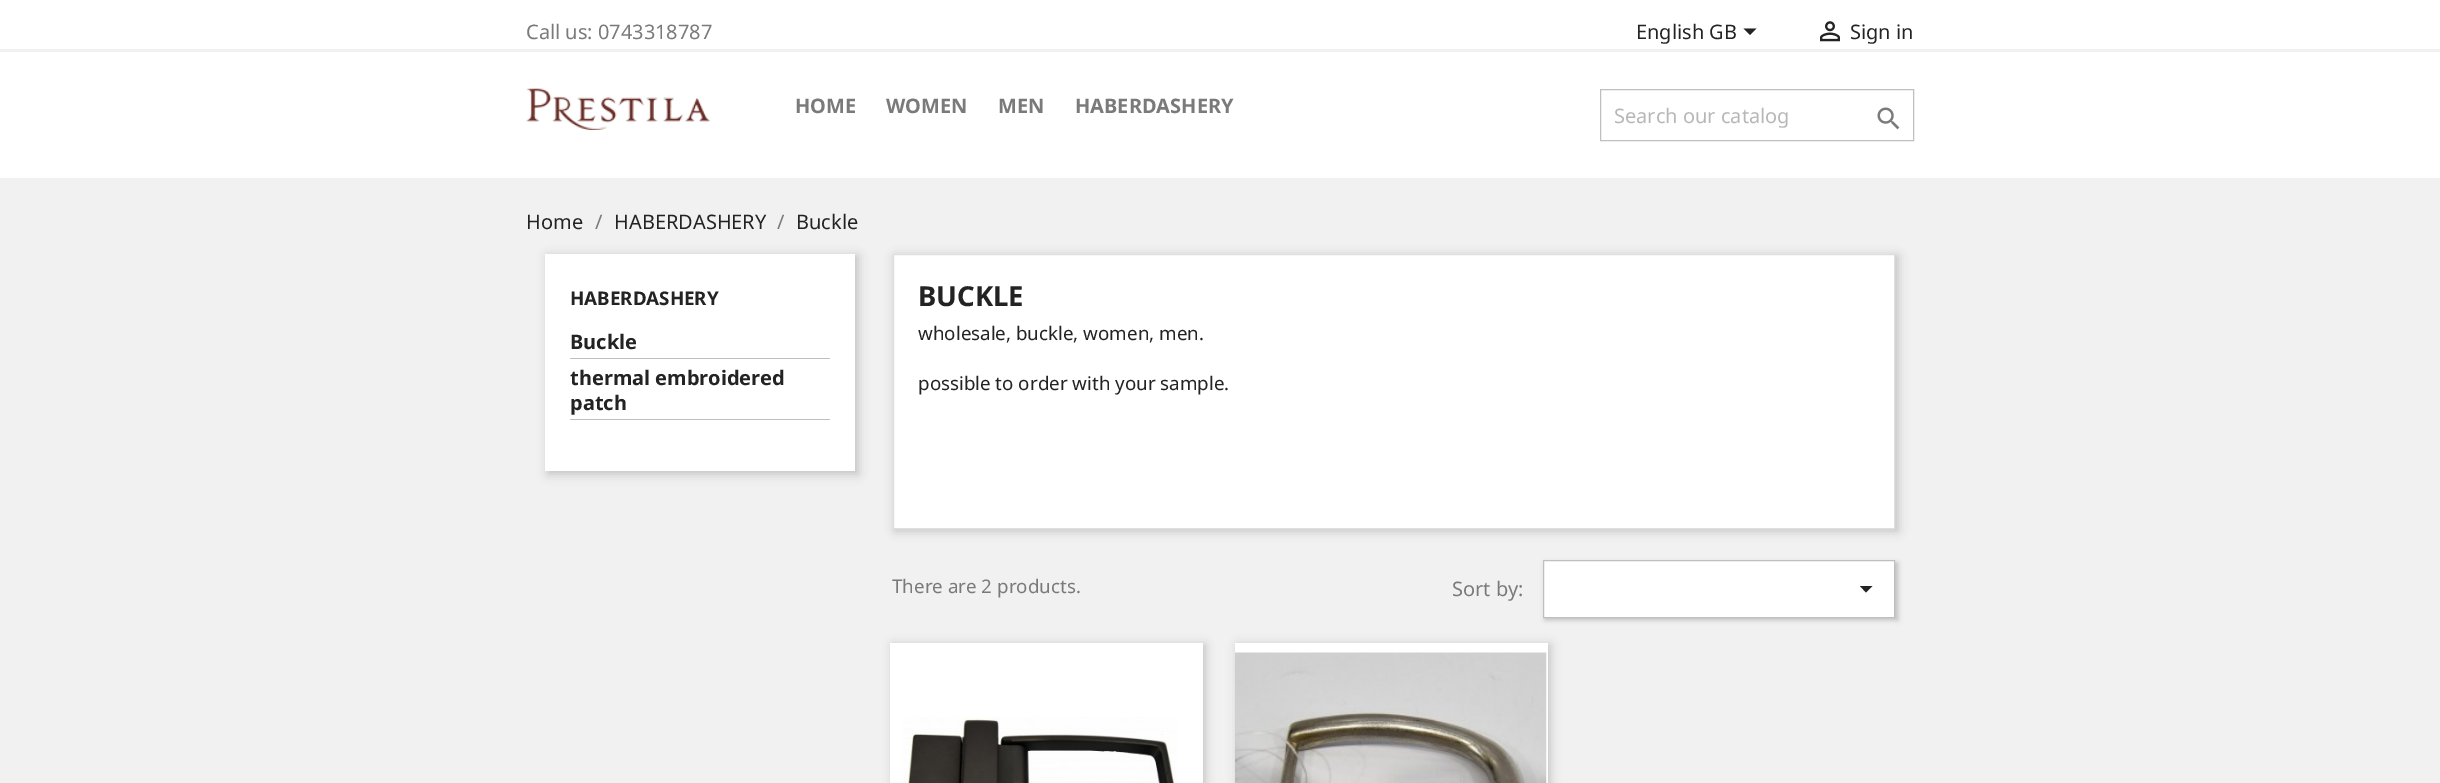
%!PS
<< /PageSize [2440 783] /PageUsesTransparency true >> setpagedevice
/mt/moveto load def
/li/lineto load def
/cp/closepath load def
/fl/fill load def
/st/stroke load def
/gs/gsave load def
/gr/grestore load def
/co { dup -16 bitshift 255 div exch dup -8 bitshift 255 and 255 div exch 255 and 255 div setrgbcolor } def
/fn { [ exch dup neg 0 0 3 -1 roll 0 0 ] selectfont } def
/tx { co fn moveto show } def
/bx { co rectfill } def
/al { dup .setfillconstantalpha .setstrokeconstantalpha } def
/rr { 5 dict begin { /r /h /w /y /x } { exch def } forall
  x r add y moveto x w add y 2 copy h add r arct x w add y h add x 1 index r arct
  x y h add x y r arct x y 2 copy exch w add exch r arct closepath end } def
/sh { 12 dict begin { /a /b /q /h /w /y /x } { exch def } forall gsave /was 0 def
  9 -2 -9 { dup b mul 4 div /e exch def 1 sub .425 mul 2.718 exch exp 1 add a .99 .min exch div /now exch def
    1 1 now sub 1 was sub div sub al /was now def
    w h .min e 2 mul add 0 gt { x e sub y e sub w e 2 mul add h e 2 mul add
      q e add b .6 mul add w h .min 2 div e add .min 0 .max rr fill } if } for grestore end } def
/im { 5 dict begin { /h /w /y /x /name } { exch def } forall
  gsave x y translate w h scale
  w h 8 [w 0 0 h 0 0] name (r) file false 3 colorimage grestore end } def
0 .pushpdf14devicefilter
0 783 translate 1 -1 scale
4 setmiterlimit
0 0 2440 783 16#FFFFFF bx
0 49 2440 3 16#F1F1F1 bx
16#232323 co
1743.5 28.5 mt 1756.5 28.5 li 1750 35 li cp fl
(media/1.raw) 1820 21 20 21 im
(media/2.raw) 526 88 184 42 im
16#BFBFBF co
1600.5 89.5 313 51 rectstroke
(media/3.raw) 1877 107 23 23 im
0 178 2440 605 16#F1F1F1 bx
16#000000 co
548 256 310 218 0 5 .2 sh
545 254 310 217 16#FFFFFF bx
570 358 260 1 16#BFBFBF bx
570 419 260 1 16#BFBFBF bx
16#000000 co
895 256 1003 275 0 5 .2 sh
16#FFFFFF co
893.5 254.5 mt 1894.5 254.5 li 1894.5 528.5 li 893.5 528.5 li cp gs fl gr
16#DFDFDF co
st
16#000000 co
1545 563 353 57 0 2.5 .2 sh
16#FFFFFF co
1543.5 560.5 mt 1894.5 560.5 li 1894.5 617.5 li 1543.5 617.5 li cp gs fl gr
16#BFBFBF co
st
16#232323 co
1860 586 mt 1872.5 586 li 1866 592.5 li cp fl
16#000000 co
893 645 312 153 0 5 .2 sh
890 643 313 140 16#FFFFFF bx
(media/4.raw) 903 717 274 66 im
16#000000 co
1238 645 312 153 0 5 .2 sh
1235 643 313 140 16#FFFFFF bx
(media/5.raw) 1235 652 312 131 im
(Call us: 0743318787) 526 39 /NotoSans-Regular 20 16#7A7A7A tx
(English GB) 1636 39 /NotoSans-Regular 20 16#232323 tx
(Sign in) 1850 39 /NotoSans-Regular 20 16#232323 tx
(HOME) 795 113 /NotoSans-Bold 20 16#7A7A7A tx
(WOMEN) 886 113 /NotoSans-Bold 20 16#7A7A7A tx
(MEN) 998 113 /NotoSans-Bold 20 16#7A7A7A tx
(HABERDASHERY) 1075 113 /NotoSans-Bold 20 16#7A7A7A tx
(Search our catalog) 1614 123 /NotoSans-Regular 20 16#B7B7B7 tx
(Home) 526 229 /NotoSans-Regular 20 16#232323 tx
(/) 595 229 /NotoSans-Regular 20 16#7A7A7A tx
(HABERDASHERY) 614 229 /NotoSans-Regular 20 16#232323 tx
(/) 777 229 /NotoSans-Regular 20 16#7A7A7A tx
(Buckle) 796 229 /NotoSans-Regular 20 16#232323 tx
(HABERDASHERY) 570 305 /NotoSans-Bold 18.75 16#232323 tx
(Buckle) 570 349 /NotoSans-Bold 20 16#232323 tx
(thermal embroidered) 570 385 /NotoSans-Bold 20 16#232323 tx
(patch) 570 410 /NotoSans-Bold 20 16#232323 tx
(BUCKLE) 918 306 /NotoSans-Bold 27.5 16#232323 tx
(wholesale, buckle, women, men.) 918 340 /NotoSans-Regular 18.75 16#232323 tx
(possible to order with your sample.) 918 390 /NotoSans-Regular 18.75 16#232323 tx
(There are 2 products.) 892 593 /NotoSans-Regular 18.75 16#7A7A7A tx
(Sort by:) 1452 596 /NotoSans-Regular 20 16#7A7A7A tx
.poppdf14devicefilter showpage
